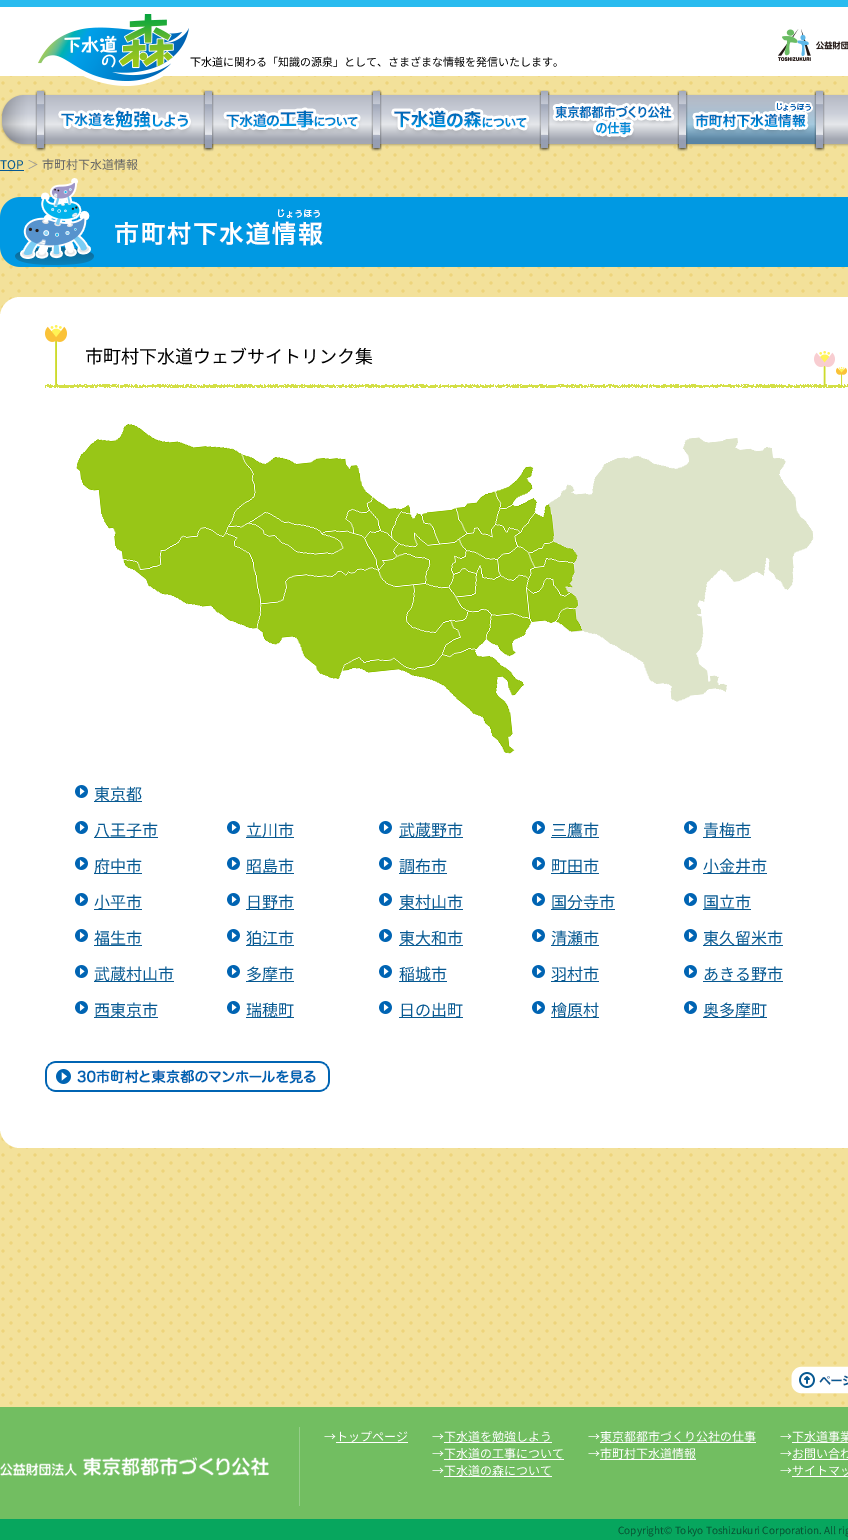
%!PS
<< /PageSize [848 1540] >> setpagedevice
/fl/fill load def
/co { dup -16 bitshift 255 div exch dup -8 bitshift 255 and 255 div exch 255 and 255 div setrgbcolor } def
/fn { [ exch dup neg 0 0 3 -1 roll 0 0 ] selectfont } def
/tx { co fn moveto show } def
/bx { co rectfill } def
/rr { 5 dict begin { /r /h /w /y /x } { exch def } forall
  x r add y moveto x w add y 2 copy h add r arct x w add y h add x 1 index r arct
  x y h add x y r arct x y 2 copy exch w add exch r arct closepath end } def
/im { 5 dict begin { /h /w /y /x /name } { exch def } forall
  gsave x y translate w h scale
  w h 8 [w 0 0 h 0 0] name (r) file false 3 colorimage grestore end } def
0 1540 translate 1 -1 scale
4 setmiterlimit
0 0 848 1540 16#F3E19A bx
(media/1.raw) 1 76 844 1331 im
(media/2.raw) 0 0 848 76 im
(media/3.raw) 38 14 151 72 im
(media/4.raw) 778 29 70 32 im
(media/5.raw) 0 90 848 62 im
(media/6.raw) 44 90 161 61 im
(media/7.raw) 212 90 161 61 im
(media/8.raw) 380 90 161 61 im
(media/9.raw) 548 90 131 61 im
(media/10.raw) 686 91 130 60 im
(media/11.raw) 823 90 2 61 im
0 170 24 1 16#075992 bx
(media/12.raw) 0 178 848 89 im
16#FFFFFF co
0 297 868 851 20 rr fl
(media/13.raw) 45 325 803 63 im
(media/14.raw) 76 424 738 330 im
(media/15.raw) 75 785 13 13 im
94 801 48 1 16#075992 bx
(media/15.raw) 75 821 13 13 im
94 837 64 1 16#075992 bx
(media/15.raw) 227 821 13 13 im
246 837 48 1 16#075992 bx
(media/15.raw) 379 821 13 13 im
399 837 64 1 16#075992 bx
(media/15.raw) 532 821 13 13 im
551 837 48 1 16#075992 bx
(media/15.raw) 684 821 13 13 im
703 837 48 1 16#075992 bx
(media/15.raw) 75 857 13 13 im
94 873 48 1 16#075992 bx
(media/15.raw) 227 857 13 13 im
246 873 48 1 16#075992 bx
(media/15.raw) 379 857 13 13 im
399 873 48 1 16#075992 bx
(media/15.raw) 532 857 13 13 im
551 873 48 1 16#075992 bx
(media/15.raw) 684 857 13 13 im
703 873 64 1 16#075992 bx
(media/15.raw) 75 893 13 13 im
94 909 48 1 16#075992 bx
(media/15.raw) 227 893 13 13 im
246 909 48 1 16#075992 bx
(media/15.raw) 379 893 13 13 im
399 909 64 1 16#075992 bx
(media/15.raw) 532 893 13 13 im
551 909 64 1 16#075992 bx
(media/15.raw) 684 893 13 13 im
703 909 48 1 16#075992 bx
(media/15.raw) 75 929 13 13 im
94 945 48 1 16#075992 bx
(media/15.raw) 227 929 13 13 im
246 945 48 1 16#075992 bx
(media/15.raw) 379 929 13 13 im
399 945 64 1 16#075992 bx
(media/15.raw) 532 929 13 13 im
551 945 48 1 16#075992 bx
(media/15.raw) 684 929 13 13 im
703 945 80 1 16#075992 bx
(media/15.raw) 75 965 13 13 im
94 981 80 1 16#075992 bx
(media/15.raw) 227 965 13 13 im
246 981 48 1 16#075992 bx
(media/15.raw) 379 965 13 13 im
399 981 48 1 16#075992 bx
(media/15.raw) 532 965 13 13 im
551 981 48 1 16#075992 bx
(media/15.raw) 684 965 13 13 im
703 981 80 1 16#075992 bx
(media/15.raw) 75 1001 13 13 im
94 1017 64 1 16#075992 bx
(media/15.raw) 227 1001 13 13 im
246 1017 48 1 16#075992 bx
(media/15.raw) 379 1001 13 13 im
399 1017 64 1 16#075992 bx
(media/15.raw) 532 1001 13 13 im
551 1017 48 1 16#075992 bx
(media/15.raw) 684 1001 13 13 im
703 1017 64 1 16#075992 bx
(media/16.raw) 45 1061 285 31 im
(media/17.raw) 0 1407 848 133 im
(media/18.raw) 791 1366 57 28 im
(media/19.raw) 0 1457 269 19 im
299 1427 1 79 16#95CE89 bx
336 1442 72 1 16#FFFFFF bx
444 1442 108 1 16#FFFFFF bx
444 1459 120 1 16#FFFFFF bx
444 1476 108 1 16#FFFFFF bx
600 1442 156 1 16#FFFFFF bx
600 1459 96 1 16#FFFFFF bx
792 1442 56 1 16#FFFFFF bx
792 1459 56 1 16#FFFFFF bx
792 1476 56 1 16#FFFFFF bx
(下水道に関わる「知識の源泉」として、さまざまな情報を発信いたします。) 190 66 /NotoSansJP-Regular 11 16#000000 tx
(TOP) 0 169 /NotoSansJP-Regular 12 16#075992 tx
(＞) 27 169 /NotoSansJP-Regular 12 16#999999 tx
(市町村下水道情報) 42 169 /NotoSansJP-Regular 12 16#666666 tx
(市町村下水道ウェブサイトリンク集) 85 363 /NotoSansJP-Regular 18 16#000000 tx
(東京都) 94 800 /NotoSansJP-Regular 16 16#075992 tx
(八王子市) 94 836 /NotoSansJP-Regular 16 16#075992 tx
(立川市) 246 836 /NotoSansJP-Regular 16 16#075992 tx
(武蔵野市) 399 836 /NotoSansJP-Regular 16 16#075992 tx
(三鷹市) 551 836 /NotoSansJP-Regular 16 16#075992 tx
(青梅市) 703 836 /NotoSansJP-Regular 16 16#075992 tx
(府中市) 94 872 /NotoSansJP-Regular 16 16#075992 tx
(昭島市) 246 872 /NotoSansJP-Regular 16 16#075992 tx
(調布市) 399 872 /NotoSansJP-Regular 16 16#075992 tx
(町田市) 551 872 /NotoSansJP-Regular 16 16#075992 tx
(小金井市) 703 872 /NotoSansJP-Regular 16 16#075992 tx
(小平市) 94 908 /NotoSansJP-Regular 16 16#075992 tx
(日野市) 246 908 /NotoSansJP-Regular 16 16#075992 tx
(東村山市) 399 908 /NotoSansJP-Regular 16 16#075992 tx
(国分寺市) 551 908 /NotoSansJP-Regular 16 16#075992 tx
(国立市) 703 908 /NotoSansJP-Regular 16 16#075992 tx
(福生市) 94 944 /NotoSansJP-Regular 16 16#075992 tx
(狛江市) 246 944 /NotoSansJP-Regular 16 16#075992 tx
(東大和市) 399 944 /NotoSansJP-Regular 16 16#075992 tx
(清瀬市) 551 944 /NotoSansJP-Regular 16 16#075992 tx
(東久留米市) 703 944 /NotoSansJP-Regular 16 16#075992 tx
(武蔵村山市) 94 980 /NotoSansJP-Regular 16 16#075992 tx
(多摩市) 246 980 /NotoSansJP-Regular 16 16#075992 tx
(稲城市) 399 980 /NotoSansJP-Regular 16 16#075992 tx
(羽村市) 551 980 /NotoSansJP-Regular 16 16#075992 tx
(あきる野市) 703 980 /NotoSansJP-Regular 16 16#075992 tx
(西東京市) 94 1016 /NotoSansJP-Regular 16 16#075992 tx
(瑞穂町) 246 1016 /NotoSansJP-Regular 16 16#075992 tx
(日の出町) 399 1016 /NotoSansJP-Regular 16 16#075992 tx
(檜原村) 551 1016 /NotoSansJP-Regular 16 16#075992 tx
(奥多摩町) 703 1016 /NotoSansJP-Regular 16 16#075992 tx
(→トップページ) 324 1441 /NotoSansJP-Regular 12 16#FFFFFF tx
(→) 432 1441 /NotoSansJP-Regular 12 16#FFFFFF tx
(下水道を勉強しよう) 444 1441 /NotoSansJP-Regular 12 16#FFFFFF tx
(→下水道の工事について) 432 1458 /NotoSansJP-Regular 12 16#FFFFFF tx
(→下水道の森について) 432 1475 /NotoSansJP-Regular 12 16#FFFFFF tx
(→東京都都市づくり公社の仕事) 588 1441 /NotoSansJP-Regular 12 16#FFFFFF tx
(→市町村下水道情報) 588 1458 /NotoSansJP-Regular 12 16#FFFFFF tx
(→下水道事業) 780 1441 /NotoSansJP-Regular 12 16#FFFFFF tx
(→お問い合わ) 780 1458 /NotoSansJP-Regular 12 16#FFFFFF tx
(→サイトマッ) 780 1475 /NotoSansJP-Regular 12 16#FFFFFF tx
(Copyright© Tokyo Toshizukuri Corporation. All rig) 618 1534 /NotoSansJP-Regular 10 16#095133 tx
showpage
